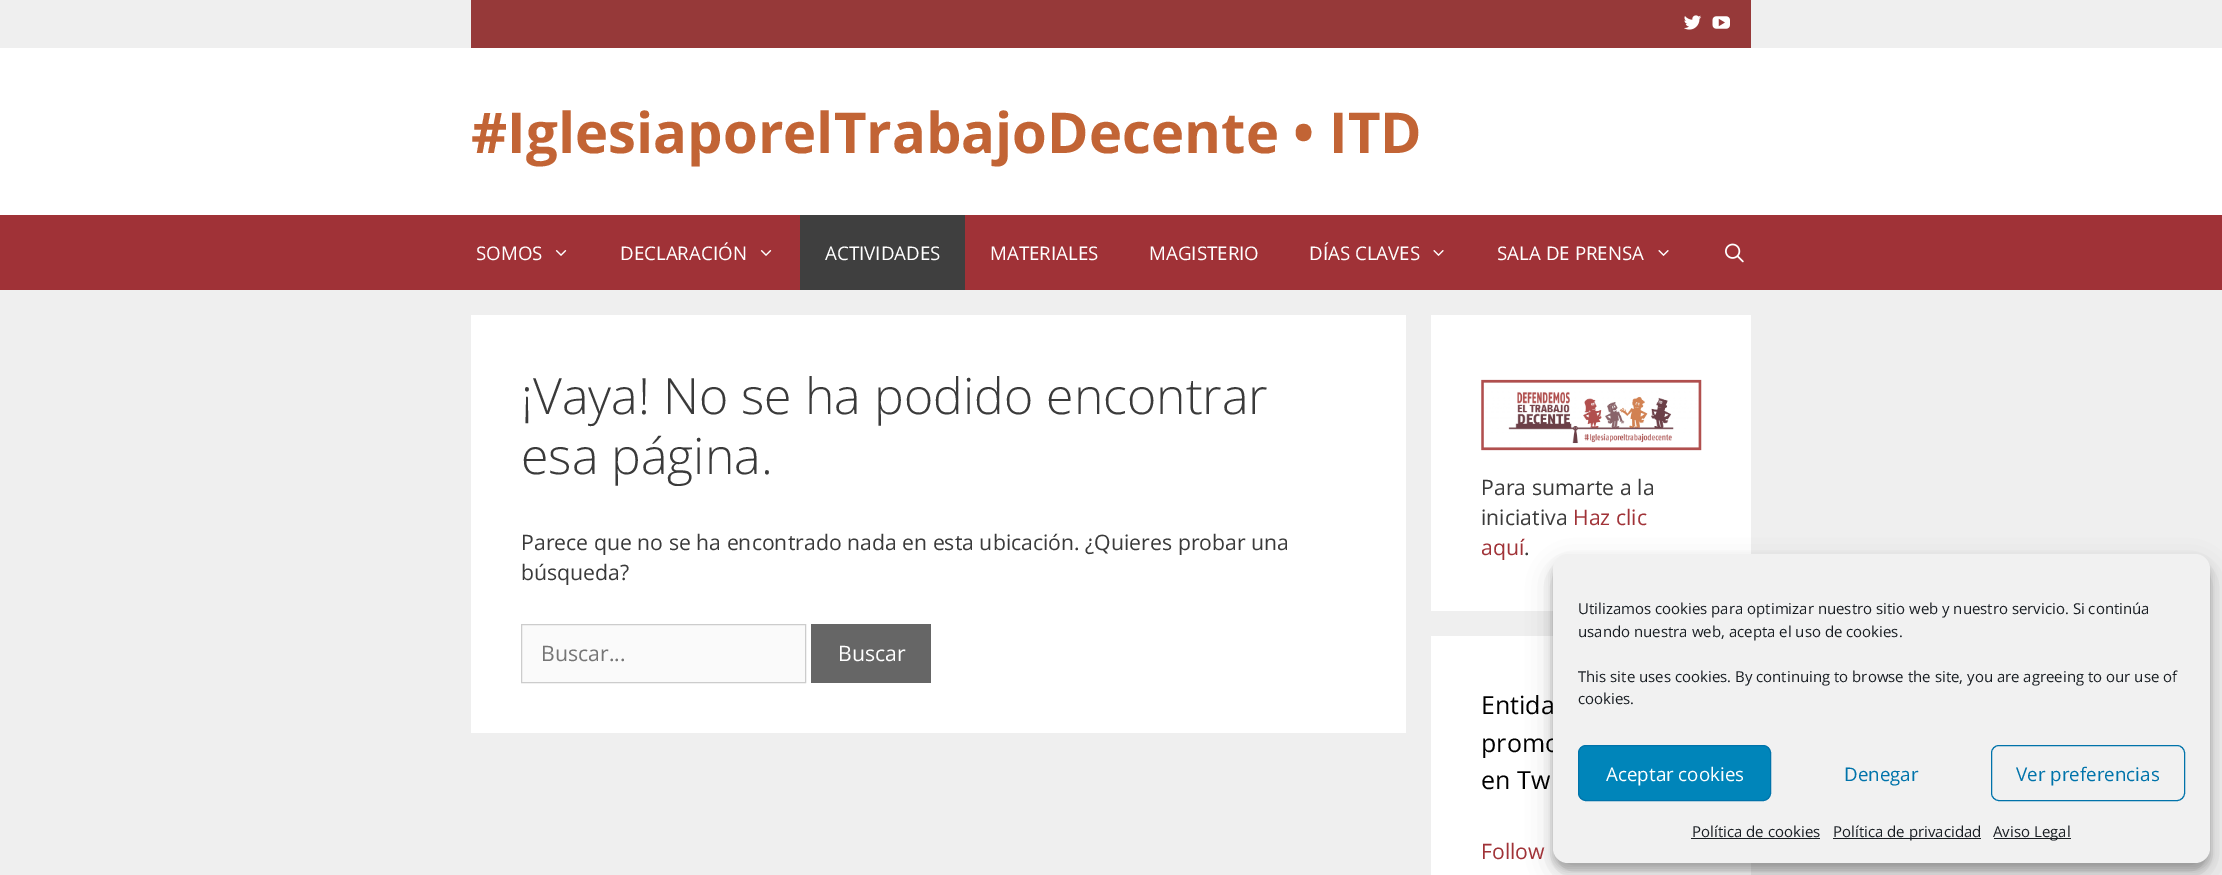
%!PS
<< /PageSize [2222 875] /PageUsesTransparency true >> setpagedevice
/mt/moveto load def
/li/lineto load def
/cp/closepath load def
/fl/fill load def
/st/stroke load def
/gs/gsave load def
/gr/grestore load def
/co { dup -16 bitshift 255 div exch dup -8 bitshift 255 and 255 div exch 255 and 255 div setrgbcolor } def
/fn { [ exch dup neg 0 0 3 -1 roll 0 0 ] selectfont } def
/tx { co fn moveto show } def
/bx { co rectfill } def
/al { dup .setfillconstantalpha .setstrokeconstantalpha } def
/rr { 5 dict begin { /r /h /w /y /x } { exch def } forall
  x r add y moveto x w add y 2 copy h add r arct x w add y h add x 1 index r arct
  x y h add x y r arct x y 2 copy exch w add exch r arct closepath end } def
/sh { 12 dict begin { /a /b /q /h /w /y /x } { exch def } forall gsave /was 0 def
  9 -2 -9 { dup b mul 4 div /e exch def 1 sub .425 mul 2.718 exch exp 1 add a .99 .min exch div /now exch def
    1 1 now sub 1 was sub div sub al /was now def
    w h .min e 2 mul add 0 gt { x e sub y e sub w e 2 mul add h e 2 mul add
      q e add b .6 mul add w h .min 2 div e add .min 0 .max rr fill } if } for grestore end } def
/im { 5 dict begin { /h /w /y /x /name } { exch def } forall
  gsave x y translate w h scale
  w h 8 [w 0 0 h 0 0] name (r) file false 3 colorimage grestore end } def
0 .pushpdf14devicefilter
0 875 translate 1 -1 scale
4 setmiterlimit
0 0 2222 875 16#EFEFEF bx
471 0 1280 48 16#963939 bx
(media/1.raw) 1684 15 18 15 im
(media/2.raw) 1712 16 18 13 im
0 48 2222 167 16#FFFFFF bx
0 215 2222 75 16#A03237 bx
(media/3.raw) 555 250 12 6 im
(media/3.raw) 760 250 12 6 im
800 215 165 75 16#3F3F3F bx
(media/4.raw) 1433 250 11 6 im
(media/4.raw) 1658 250 11 6 im
(media/5.raw) 1725 243 19 20 im
471 315 935 418 16#FFFFFF bx
16#FAFAFA co
521.5 624.5 mt 805.5 624.5 li 805.5 682.5 li 521.5 682.5 li cp gs fl gr
16#CCCCCC co
st
811 624 120 59 16#666666 bx
1431 315 320 296 16#FFFFFF bx
(media/6.raw) 1481 379 221 72 im
1431 636 320 239 16#FFFFFF bx
16#000000 co
1553 561 657 309 15 4 .23 sh
1553 566 657 309 15 12.5 .19 sh
(#IglesiaporelTrabajoDecente • ITD) 471 153 /OpenSans-Bold 56.25 16#C26435 tx
(SOMOS) 476 260 /OpenSans-Regular 18.75 16#FFFFFF tx
(DECLARACIÓN) 620 260 /OpenSans-Regular 18.75 16#FFFFFF tx
(ACTIVIDADES) 825 260 /OpenSans-Regular 18.75 16#FFFFFF tx
(MATERIALES) 990 260 /OpenSans-Regular 18.75 16#FFFFFF tx
(MAGISTERIO) 1149 260 /OpenSans-Regular 18.75 16#FFFFFF tx
(DÍAS CLAVES) 1309 260 /OpenSans-Regular 18.75 16#FFFFFF tx
(SALA DE PRENSA) 1497 260 /OpenSans-Regular 18.75 16#FFFFFF tx
(¡Vaya! No se ha podido encontrar) 521 414 /OpenSans-Light 50 16#3A3A3A tx
(esa página.) 521 474 /OpenSans-Light 50 16#3A3A3A tx
(Parece que no se ha encontrado nada en esta ubicación. ¿Quieres probar una) 521 550 /OpenSans-Regular 21.25 16#3A3A3A tx
(búsqueda?) 521 580 /OpenSans-Regular 21.25 16#3A3A3A tx
(Buscar...) 541 661 /OpenSans-Regular 21.25 16#757575 tx
(Buscar) 838 661 /OpenSans-Regular 21.25 16#FFFFFF tx
(Para sumarte a la) 1481 495 /OpenSans-Regular 21.25 16#3A3A3A tx
(iniciativa) 1481 525 /OpenSans-Regular 21.25 16#3A3A3A tx
(Haz clic) 1573 525 /OpenSans-Regular 21.25 16#A03237 tx
(aquí) 1481 555 /OpenSans-Regular 21.25 16#A03237 tx
(.) 1524 555 /OpenSans-Regular 21.25 16#3A3A3A tx
(Entida) 1481 714 /OpenSans-Regular 25 16#000000 tx
(promo) 1481 752 /OpenSans-Regular 25 16#000000 tx
(en Tw) 1481 789 /OpenSans-Regular 25 16#000000 tx
(Follow) 1481 859 /OpenSans-Regular 21.25 16#A03237 tx
16#F1F1F1 co
1553 554 657 309 15 rr fl
(Utilizamos cookies para optimizar nuestro sitio web y nuestro servicio. Si continúa) 1578 614 /OpenSans-Regular 15 16#191E23 tx
(usando nuestra web, acepta el uso de cookies.) 1578 637 /OpenSans-Regular 15 16#191E23 tx
(This site uses cookies. By continuing to browse the site, you are agreeing to our use of) 1578 682 /OpenSans-Regular 15 16#191E23 tx
(cookies.) 1578 704 /OpenSans-Regular 15 16#191E23 tx
16#0085BA co
1578.5 745.5 192 55 7.5 rr gs fl gr
16#0073AA co
st
(Aceptar cookies) 1606 781 /OpenSans-Regular 18.75 16#FFFFFF tx
(Denegar) 1844 781 /OpenSans-Regular 18.75 16#0073AA tx
1991.5 745.5 193 55 7.5 rr st
(Ver preferencias) 2016 781 /OpenSans-Regular 18.75 16#0073AA tx
(Política de cookies) 1692 837 /OpenSans-Regular 15 16#191E23 tx
1691 838 129 1 16#191E23 bx
1833 838 148 1 16#191E23 bx
(Política de privacidad) 1833 837 /OpenSans-Regular 15 16#191E23 tx
1994 838 77 1 16#191E23 bx
(Aviso Legal) 1993 837 /OpenSans-Regular 15 16#191E23 tx
.poppdf14devicefilter showpage
